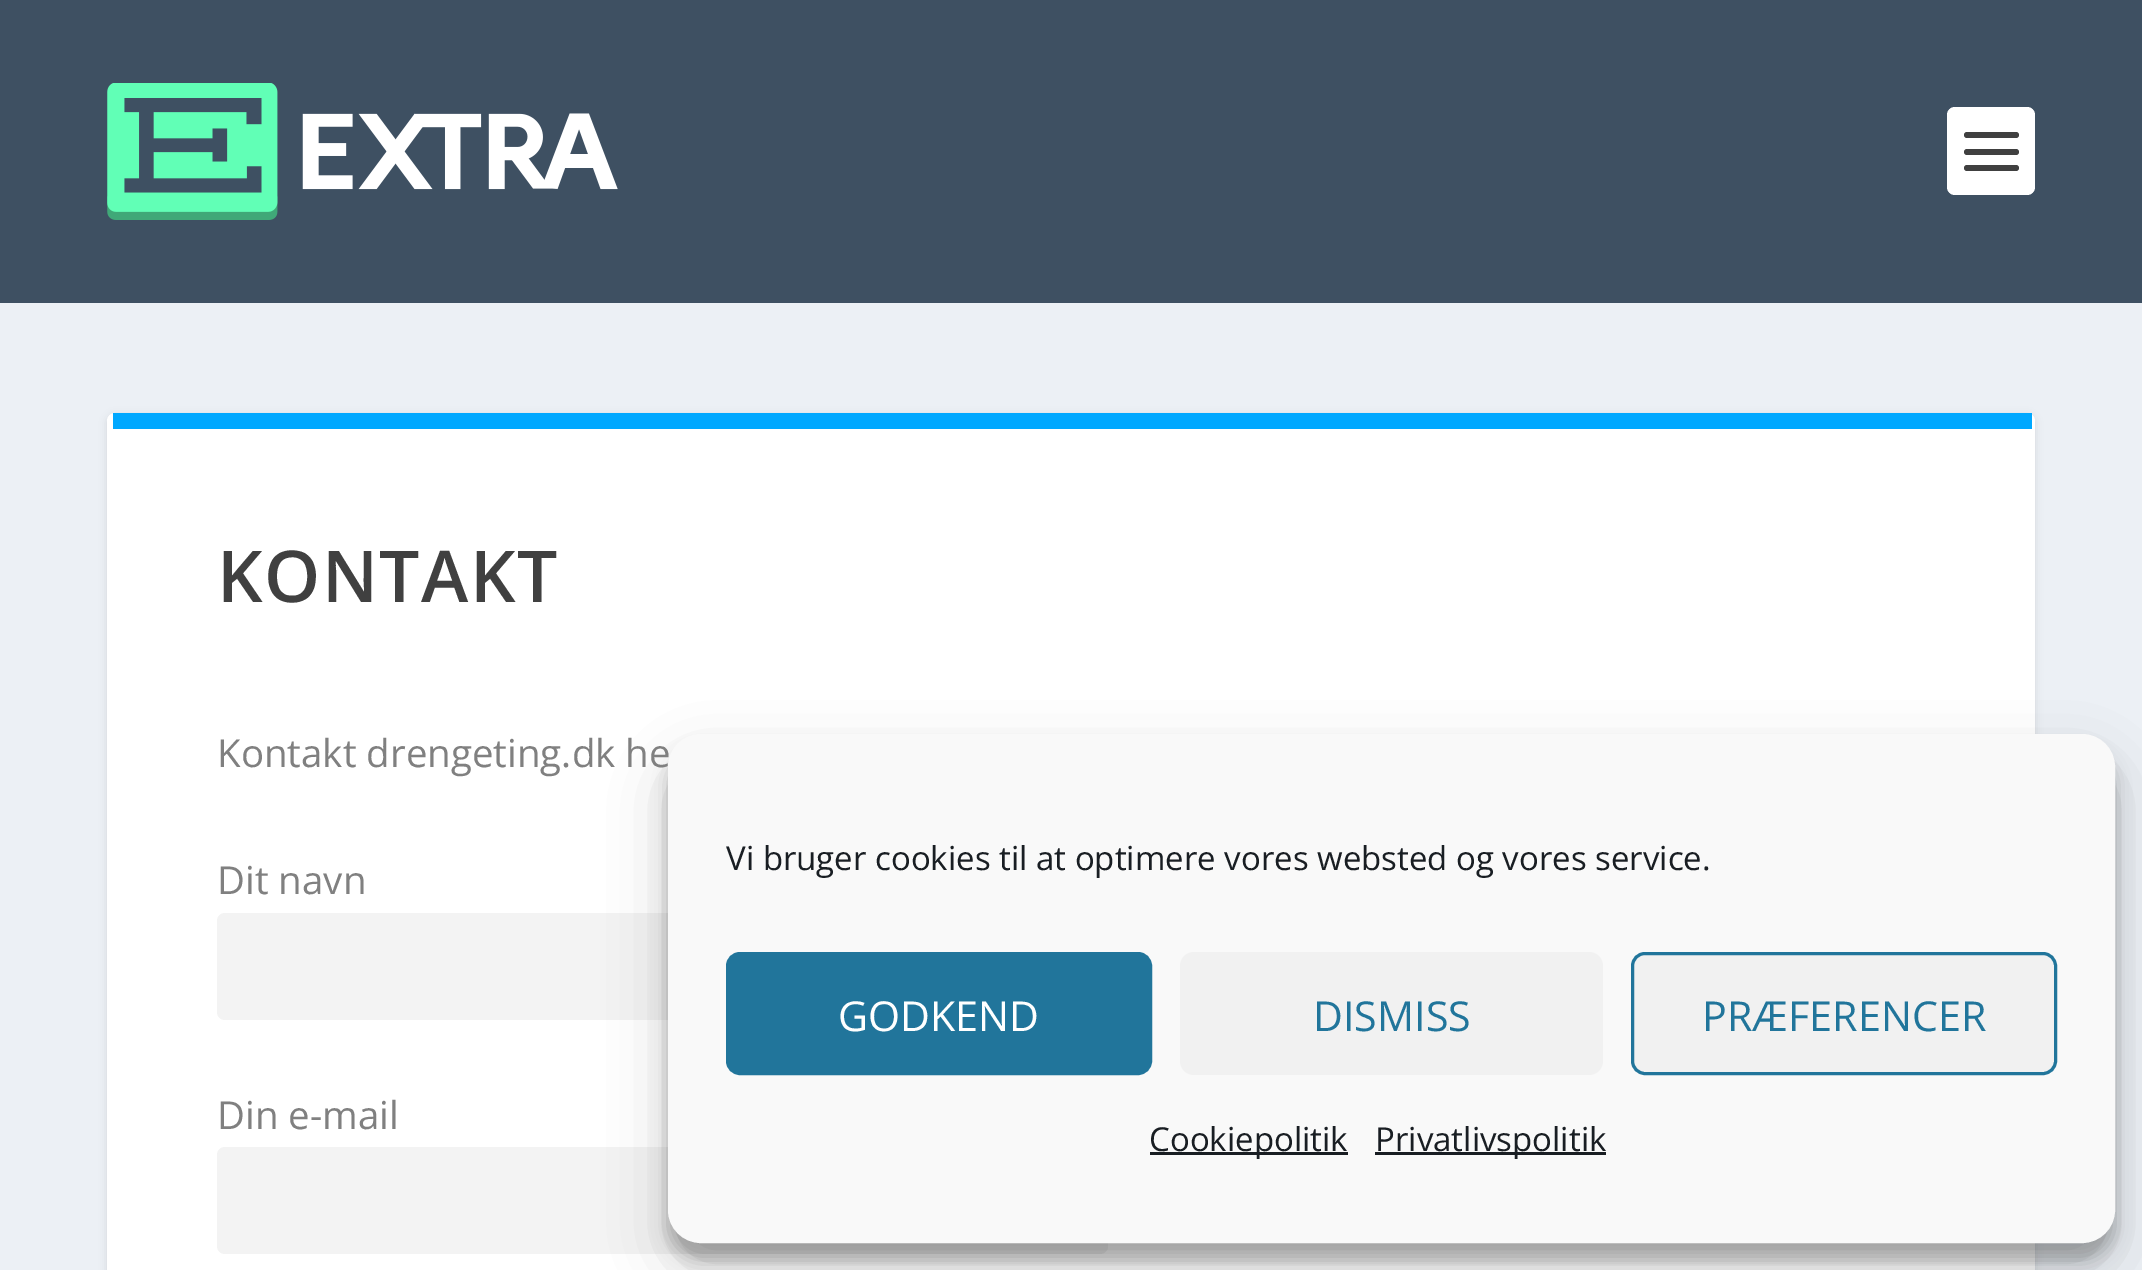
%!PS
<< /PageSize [2142 1270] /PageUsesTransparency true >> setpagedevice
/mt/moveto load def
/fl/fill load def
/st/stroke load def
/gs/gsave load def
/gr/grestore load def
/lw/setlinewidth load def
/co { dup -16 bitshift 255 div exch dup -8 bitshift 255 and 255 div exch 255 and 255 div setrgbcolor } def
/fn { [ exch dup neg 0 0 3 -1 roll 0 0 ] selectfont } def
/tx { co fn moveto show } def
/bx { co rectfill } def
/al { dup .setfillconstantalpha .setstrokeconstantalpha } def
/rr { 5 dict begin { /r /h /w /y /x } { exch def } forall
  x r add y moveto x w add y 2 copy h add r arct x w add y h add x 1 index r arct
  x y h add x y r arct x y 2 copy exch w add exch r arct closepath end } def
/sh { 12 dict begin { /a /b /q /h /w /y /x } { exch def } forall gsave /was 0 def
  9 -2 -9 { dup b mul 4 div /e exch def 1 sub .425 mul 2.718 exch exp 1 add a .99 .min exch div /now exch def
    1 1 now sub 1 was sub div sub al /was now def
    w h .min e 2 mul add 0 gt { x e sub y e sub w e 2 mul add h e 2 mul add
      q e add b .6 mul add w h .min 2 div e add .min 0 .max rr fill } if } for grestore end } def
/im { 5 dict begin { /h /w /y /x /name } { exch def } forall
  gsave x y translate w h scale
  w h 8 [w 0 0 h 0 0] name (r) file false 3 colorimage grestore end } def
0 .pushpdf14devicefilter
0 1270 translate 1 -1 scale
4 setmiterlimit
0 0 2142 1270 16#ECF0F5 bx
0 0 2142 303 16#3E5062 bx
(media/1.raw) 107 83 511 137 im
16#FFFFFF co
1947 107 88 88 8 rr fl
16#404040 co
1964 132 55 6 3 rr fl
1964 149 55 6 3 rr fl
1964 165 55 6 3 rr fl
16#000000 co
107 415 1928 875 8 4 .1 sh
16#FFFFFF co
107 413 1928 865 8 rr fl
113 413 1919 16 16#00A8FF bx
16#F3F3F3 co
217 913 891 107 8 rr fl
217 1147 891 107 8 rr fl
16#000000 co
668 751 1447 509 33 8 .23 sh
668 762 1447 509 33 27.5 .19 sh
/OpenSans-SemiBold 71.5 fn
16#404040 co
217 602 mt 1.5 0 (KONTAKT) ashow
(Kontakt drengeting.dk he) 217 767 /OpenSans-Regular 38.5 16#808080 tx
(Dit navn) 217 894 /OpenSans-Regular 38.5 16#808080 tx
(Din e-mail) 217 1129 /OpenSans-Regular 38.5 16#808080 tx
16#F9F9F9 co
669.5 735.5 1444 506 31.5 rr gs fl gr
3 lw
st
(Vi bruger cookies til at optimere vores websted og vores service.) 726 870 /OpenSans-Regular 33 16#191E23 tx
16#21759B co
727.5 953.5 423 120 12.5 rr gs fl gr
st
(GODKEND) 838 1031 /OpenSans-Regular 41.25 16#FFFFFF tx
16#F1F1F1 co
1180 952 423 123 14 rr fl
(DISMISS) 1313 1031 /OpenSans-Regular 41.25 16#21759B tx
16#F1F1F1 co
1632.5 953.5 423 120 12.5 rr gs fl gr
16#21759B co
st
(PRÆFERENCER) 1702 1031 /OpenSans-Regular 41.25 16#21759B tx
1150 1152 198 3 16#191E23 bx
(Cookiepolitik) 1149 1151 /OpenSans-Regular 33 16#191E23 tx
1375 1152 231 3 16#191E23 bx
(Privatlivspolitik) 1375 1151 /OpenSans-Regular 33 16#191E23 tx
.poppdf14devicefilter showpage
